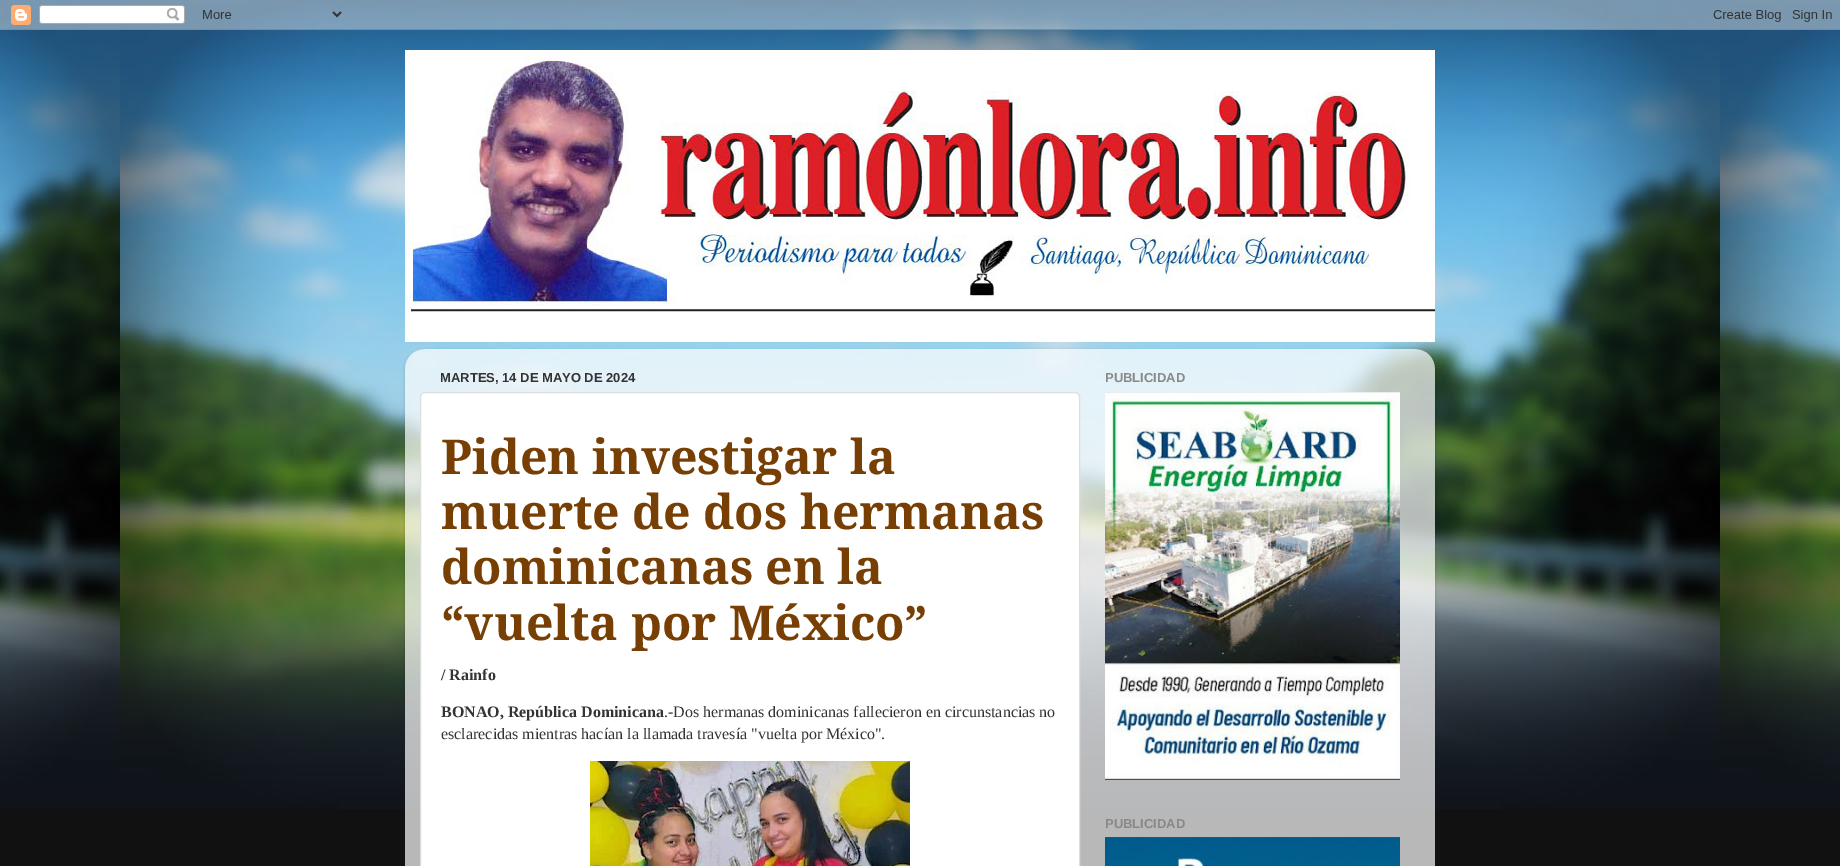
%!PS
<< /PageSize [1840 866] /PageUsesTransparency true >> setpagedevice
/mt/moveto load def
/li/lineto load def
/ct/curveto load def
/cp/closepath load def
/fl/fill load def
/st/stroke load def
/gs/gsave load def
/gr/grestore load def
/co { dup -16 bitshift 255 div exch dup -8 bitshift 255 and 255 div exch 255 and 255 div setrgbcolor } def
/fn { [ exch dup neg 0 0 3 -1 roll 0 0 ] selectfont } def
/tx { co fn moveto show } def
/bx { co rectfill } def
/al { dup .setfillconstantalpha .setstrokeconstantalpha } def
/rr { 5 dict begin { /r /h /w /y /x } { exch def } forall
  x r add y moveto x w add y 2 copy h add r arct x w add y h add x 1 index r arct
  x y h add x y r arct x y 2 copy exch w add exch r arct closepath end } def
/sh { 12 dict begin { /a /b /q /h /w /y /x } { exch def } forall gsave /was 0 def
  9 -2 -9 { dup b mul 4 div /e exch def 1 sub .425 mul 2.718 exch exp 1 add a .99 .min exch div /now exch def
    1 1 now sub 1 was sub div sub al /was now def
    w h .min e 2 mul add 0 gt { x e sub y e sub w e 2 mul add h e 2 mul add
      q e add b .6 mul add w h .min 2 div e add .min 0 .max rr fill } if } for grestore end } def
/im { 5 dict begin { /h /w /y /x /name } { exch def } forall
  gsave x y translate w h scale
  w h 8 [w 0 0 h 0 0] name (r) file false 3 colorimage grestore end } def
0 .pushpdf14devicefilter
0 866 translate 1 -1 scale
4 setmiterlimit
0 0 1840 866 16#111111 bx
(media/1.raw) 0 0 1840 809 im
(media/2.raw) 0 0 1840 30 im
(media/3.raw) 405 50 1030 292 im
gs
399 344 mt 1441 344 li 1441 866 li 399 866 li cp 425 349 mt 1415 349 li 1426 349 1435 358 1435 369 ct 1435 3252 li 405 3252 li 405 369 li 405 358 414 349 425 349 ct cp eoclip newpath
16#000000 co
405 350 1030 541 20 1.5 .15 sh
gr
(media/4.raw) 405 349 1030 517 im
16#FFFFFF co
420.5 392.5 659 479 4.5 rr gs fl gr
16#DDDDDD co
st
(media/5.raw) 590 761 320 105 im
(media/6.raw) 1105 392 295 388 im
(media/7.raw) 1105 837 295 29 im
(MARTES, 14 DE MAYO DE 2024) 440 382 /LiberationSans-Bold 13 16#333333 tx
(Piden investigar la) 441 474 /NotoSerif-Bold 48 16#783F04 tx
(muerte de dos hermanas) 441 529 /NotoSerif-Bold 48 16#783F04 tx
(dominicanas en la) 441 584 /NotoSerif-Bold 48 16#783F04 tx
(“vuelta por México”) 441 640 /NotoSerif-Bold 48 16#783F04 tx
(/ Rainfo) 441 680 /LiberationSerif-Bold 16 16#333333 tx
(BONAO, República Dominicana) 441 717 /LiberationSerif-Bold 16 16#333333 tx
(.-Dos hermanas dominicanas fallecieron en circunstancias no) 664 717 /LiberationSerif-Regular 16 16#333333 tx
(esclarecidas mientras hacían la llamada travesía "vuelta por México".) 441 739 /LiberationSerif-Regular 16 16#333333 tx
(PUBLICIDAD) 1105 382 /LiberationSans-Bold 13 16#888888 tx
(PUBLICIDAD) 1105 828 /LiberationSans-Bold 13 16#888888 tx
.poppdf14devicefilter showpage
